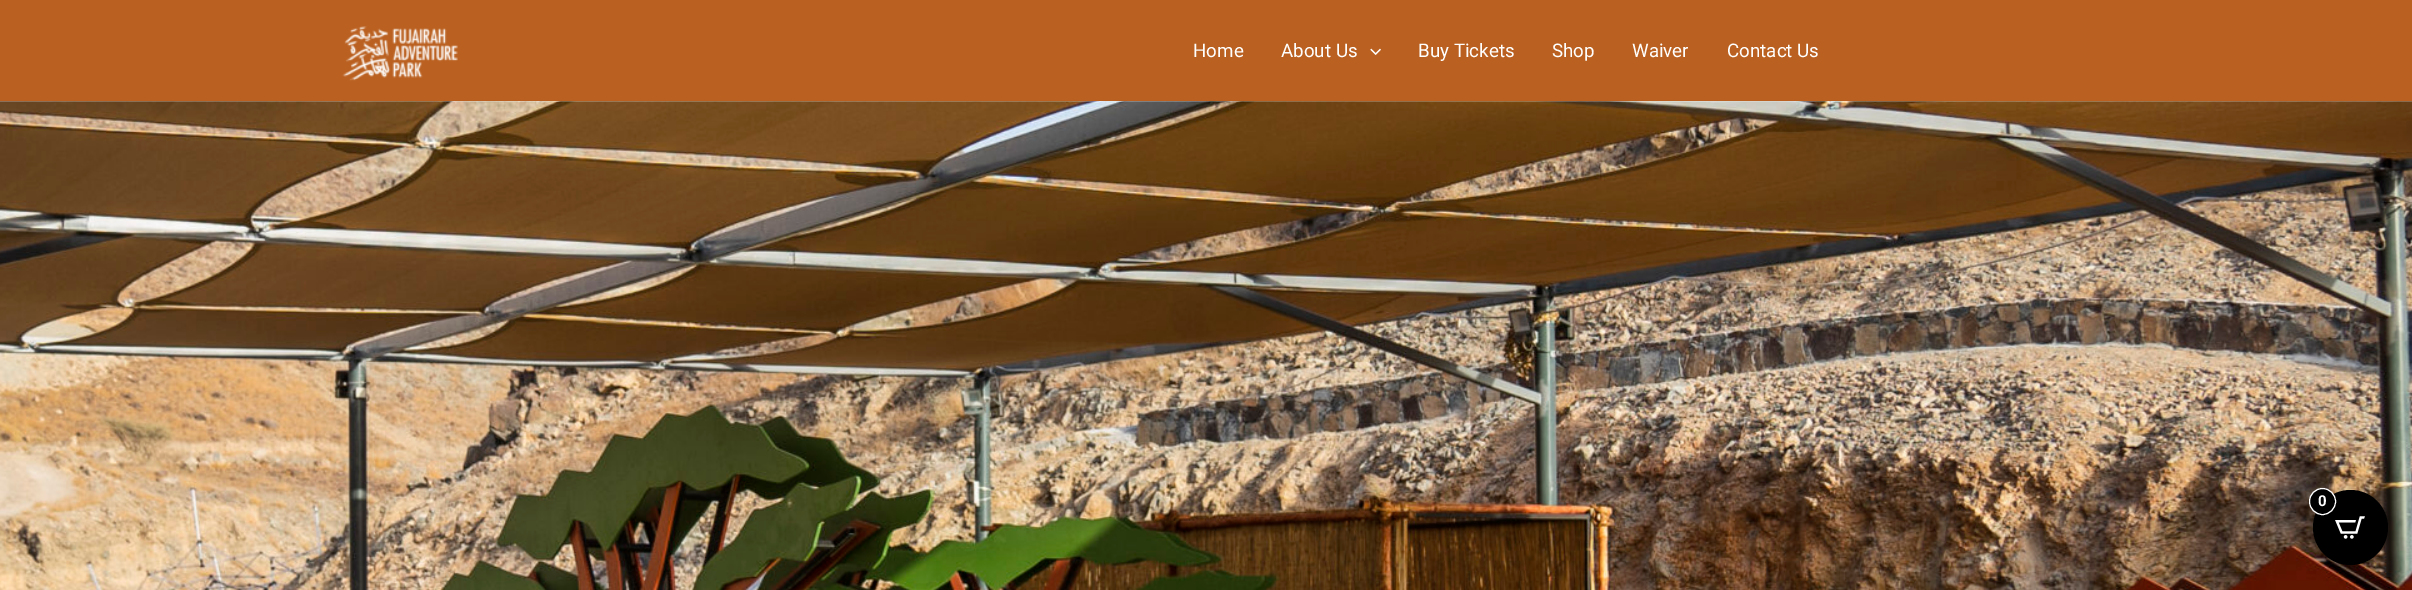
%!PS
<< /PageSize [2412 590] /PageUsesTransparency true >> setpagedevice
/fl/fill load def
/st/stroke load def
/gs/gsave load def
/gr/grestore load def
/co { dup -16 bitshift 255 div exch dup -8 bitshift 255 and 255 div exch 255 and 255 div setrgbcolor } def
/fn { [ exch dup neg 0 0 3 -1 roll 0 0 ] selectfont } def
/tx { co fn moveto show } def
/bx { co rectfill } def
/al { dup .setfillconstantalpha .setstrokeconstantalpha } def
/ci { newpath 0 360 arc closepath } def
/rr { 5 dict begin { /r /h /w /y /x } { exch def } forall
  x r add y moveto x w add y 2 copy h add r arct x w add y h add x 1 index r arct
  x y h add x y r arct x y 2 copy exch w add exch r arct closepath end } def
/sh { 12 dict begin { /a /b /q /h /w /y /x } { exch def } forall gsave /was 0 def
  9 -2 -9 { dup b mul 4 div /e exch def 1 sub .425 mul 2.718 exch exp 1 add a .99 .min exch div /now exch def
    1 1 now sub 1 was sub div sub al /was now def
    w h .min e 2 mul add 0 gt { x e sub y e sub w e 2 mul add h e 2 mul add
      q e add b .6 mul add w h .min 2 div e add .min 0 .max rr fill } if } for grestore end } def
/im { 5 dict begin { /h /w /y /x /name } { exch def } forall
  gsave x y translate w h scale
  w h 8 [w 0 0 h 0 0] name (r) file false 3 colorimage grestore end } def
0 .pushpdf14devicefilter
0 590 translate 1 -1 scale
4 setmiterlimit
0 0 2412 590 16#FFFFFF bx
0 0 2412 101 16#BA6020 bx
(media/1.raw) 342 26 116 55 im
(media/2.raw) 1370 48 11 7 im
(media/3.raw) 0 101 2412 489 im
16#000000 co
2313 495 75 75 37.5 4.5 .1 sh
2350.5 527.5 37.5 ci fl
2322.5 501.5 13 ci gs fl gr
16#FFFFFF co
st
(media/4.raw) 2335 516 30 23 im
(Home) 1193 57 /Roboto-Regular 18.75 16#FFFFFF tx
(About Us) 1281 57 /Roboto-Regular 18.75 16#FFFFFF tx
(Buy Tickets) 1418 57 /Roboto-Regular 18.75 16#FFFFFF tx
(Shop) 1552 57 /Roboto-Regular 18.75 16#FFFFFF tx
(Waiver) 1632 57 /Roboto-Regular 18.75 16#FFFFFF tx
(Contact Us) 1727 57 /Roboto-Regular 18.75 16#FFFFFF tx
(0) 2318 506 /Roboto-Bold 15 16#FFFFFF tx
.poppdf14devicefilter showpage
